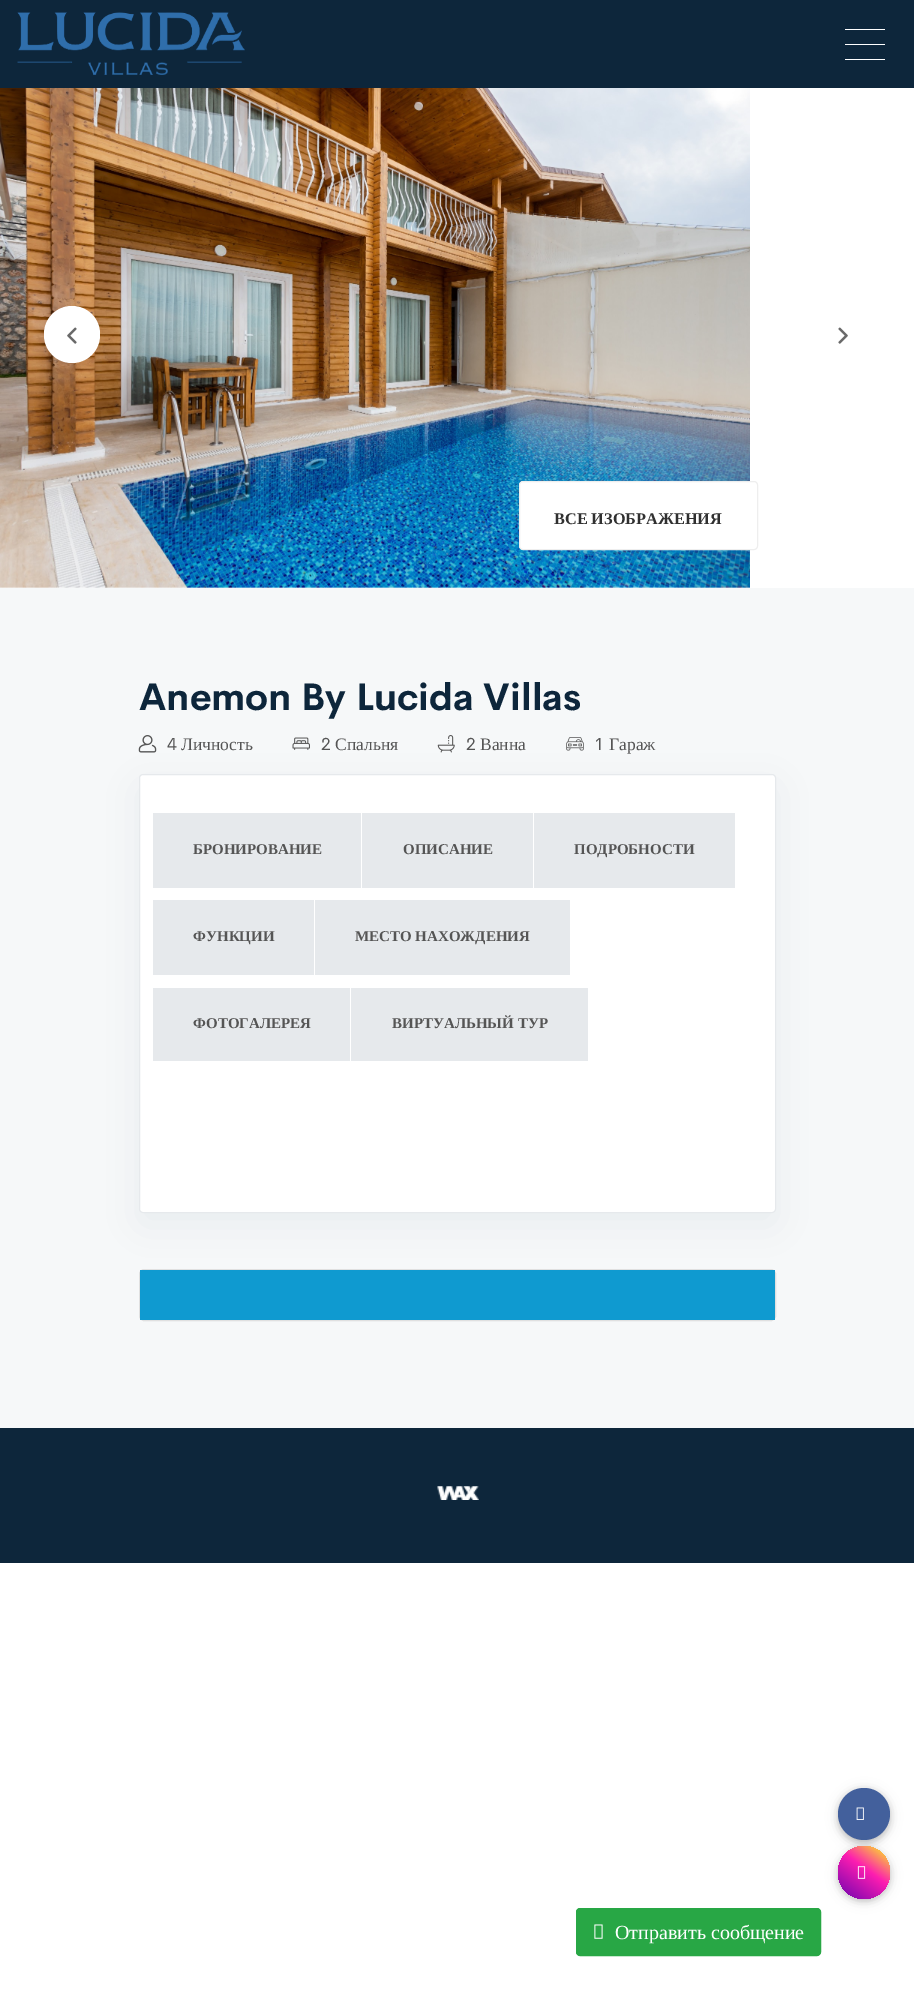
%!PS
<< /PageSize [914 1992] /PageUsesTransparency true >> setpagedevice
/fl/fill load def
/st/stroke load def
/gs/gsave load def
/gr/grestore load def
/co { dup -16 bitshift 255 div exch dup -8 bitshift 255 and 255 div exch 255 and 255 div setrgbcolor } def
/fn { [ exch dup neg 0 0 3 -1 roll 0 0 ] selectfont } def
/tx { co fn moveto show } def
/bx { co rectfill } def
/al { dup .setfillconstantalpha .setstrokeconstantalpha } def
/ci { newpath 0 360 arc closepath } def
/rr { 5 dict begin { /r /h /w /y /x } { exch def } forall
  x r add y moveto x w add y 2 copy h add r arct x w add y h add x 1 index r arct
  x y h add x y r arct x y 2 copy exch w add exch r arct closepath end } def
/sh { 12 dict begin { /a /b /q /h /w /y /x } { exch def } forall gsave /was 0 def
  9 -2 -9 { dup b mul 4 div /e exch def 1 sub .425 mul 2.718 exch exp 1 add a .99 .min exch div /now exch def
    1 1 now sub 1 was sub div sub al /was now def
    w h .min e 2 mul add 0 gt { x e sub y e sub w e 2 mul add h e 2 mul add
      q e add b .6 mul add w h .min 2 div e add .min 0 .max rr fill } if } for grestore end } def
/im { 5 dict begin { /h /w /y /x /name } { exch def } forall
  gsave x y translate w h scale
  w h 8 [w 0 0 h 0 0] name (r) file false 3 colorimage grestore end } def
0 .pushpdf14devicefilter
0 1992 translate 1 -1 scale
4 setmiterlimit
0 0 914 1992 16#FFFFFF bx
0 0 914 88 16#0D263B bx
(media/1.raw) 17 12 228 63 im
845 44 40 1 16#FFFFFF bx
845 29 40 1 16#FFFFFF bx
845 59 40 1 16#FFFFFF bx
(media/2.raw) 0 88 750 500 im
44 306 56 57 28 rr fl
(media/3.raw) 67 327 10 17 im
(media/4.raw) 838 327 10 17 im
519.5 481.5 238 68 3.5 rr gs fl gr
16#EEEEEE co
st
0 588 914 840 16#F6F8F9 bx
(media/5.raw) 138 735 19 18 im
(media/6.raw) 292 737 18 13 im
(media/7.raw) 437 735 18 18 im
(media/8.raw) 566 737 18 14 im
16#0D263B co
139 786 637 439 4 19 .05 sh
16#FFFFFF co
139.5 774.5 636 438 3.5 rr gs fl gr
16#E6E9EC co
st
153 813 380 75 16#E6E9EC bx
361 813 1 75 16#FFFFFF bx
534 813 201 75 16#E6E9EC bx
153 900 161 75 16#E6E9EC bx
315 900 255 75 16#E6E9EC bx
153 988 197 73 16#E6E9EC bx
351 988 237 73 16#E6E9EC bx
16#FFFFFF co
139 1269 637 52 5 rr fl
0.12 al
16#000000 co
139.5 1269.5 636 51 4.5 rr st
1 al
140 1270 635 50 16#0F9AD0 bx
0 1428 914 135 16#0D263B bx
(media/9.raw) 437 1486 42 14 im
16#000000 co
838 1790 52 53 26 6 .12 sh
838 1790 52 53 26 3 .16 sh
16#43609C co
864 1814 26 ci fl
(media/10.raw) 856 1807 8 13 im
16#28A745 co
576.5 1908.5 244 47 3.5 rr gs fl gr
st
16#000000 co
838 1849 52 52 26 6 .12 sh
838 1849 52 52 26 3 .16 sh
gs 838 1846 52 53 26 rr clip newpath
<< /ShadingType 2 /ColorSpace /DeviceRGB /Coords [842 1902 885 1843] /Extend [true true] /Function << /FunctionType 3 /Domain [0 1] /Functions [<< /FunctionType 2 /Domain [0 1] /C0 [.42 .016 .69] /C1 [.992 .114 .69] /N 1 >> << /FunctionType 2 /Domain [0 1] /C0 [.992 .114 .69] /C1 [.984 .976 .098] /N 1 >>] /Bounds [.56] /Encode [0 1 0 1] >> >> shfill gr
(media/11.raw) 857 1866 9 13 im
(media/12.raw) 594 1924 9 15 im
(ВСЕ ИЗОБРАЖЕНИЯ) 554 524 /LiberationSerif-Bold 16.25 16#303030 tx
(Anemon By Lucida Villas) 139 710 /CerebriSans-Bold 37.5 16#0D263B tx
(4) 167 750 /CerebriSans-Regular 17.5 16#555555 tx
(Личность) 181 750 /LiberationSerif-Regular 17.5 16#555555 tx
(2) 321 750 /CerebriSans-Regular 17.5 16#555555 tx
(Спальня) 335 750 /LiberationSerif-Regular 17.5 16#555555 tx
(2) 466 750 /CerebriSans-Regular 17.5 16#555555 tx
(Ванна) 480 750 /LiberationSerif-Regular 17.5 16#555555 tx
(1) 594 750 /CerebriSans-Regular 17.5 16#555555 tx
(Гараж) 609 750 /LiberationSerif-Regular 17.5 16#555555 tx
(БРОНИРОВАНИЕ) 193 854 /LiberationSerif-Bold 15 16#555555 tx
(ОПИСАНИЕ) 403 854 /LiberationSerif-Bold 15 16#555555 tx
(ПОДРОБНОСТИ) 574 854 /LiberationSerif-Bold 15 16#555555 tx
(ФУНКЦИИ) 193 941 /LiberationSerif-Bold 15 16#555555 tx
(МЕСТО НАХОЖДЕНИЯ) 355 941 /LiberationSerif-Bold 15 16#555555 tx
(ФОТОГАЛЕРЕЯ) 193 1028 /LiberationSerif-Bold 15 16#555555 tx
(ВИРТУАЛЬНЫЙ ТУР) 392 1028 /LiberationSerif-Bold 15 16#555555 tx
(Отправить сообщение) 615 1939 /LiberationSerif-Regular 20 16#FFFFFF tx
.poppdf14devicefilter showpage
